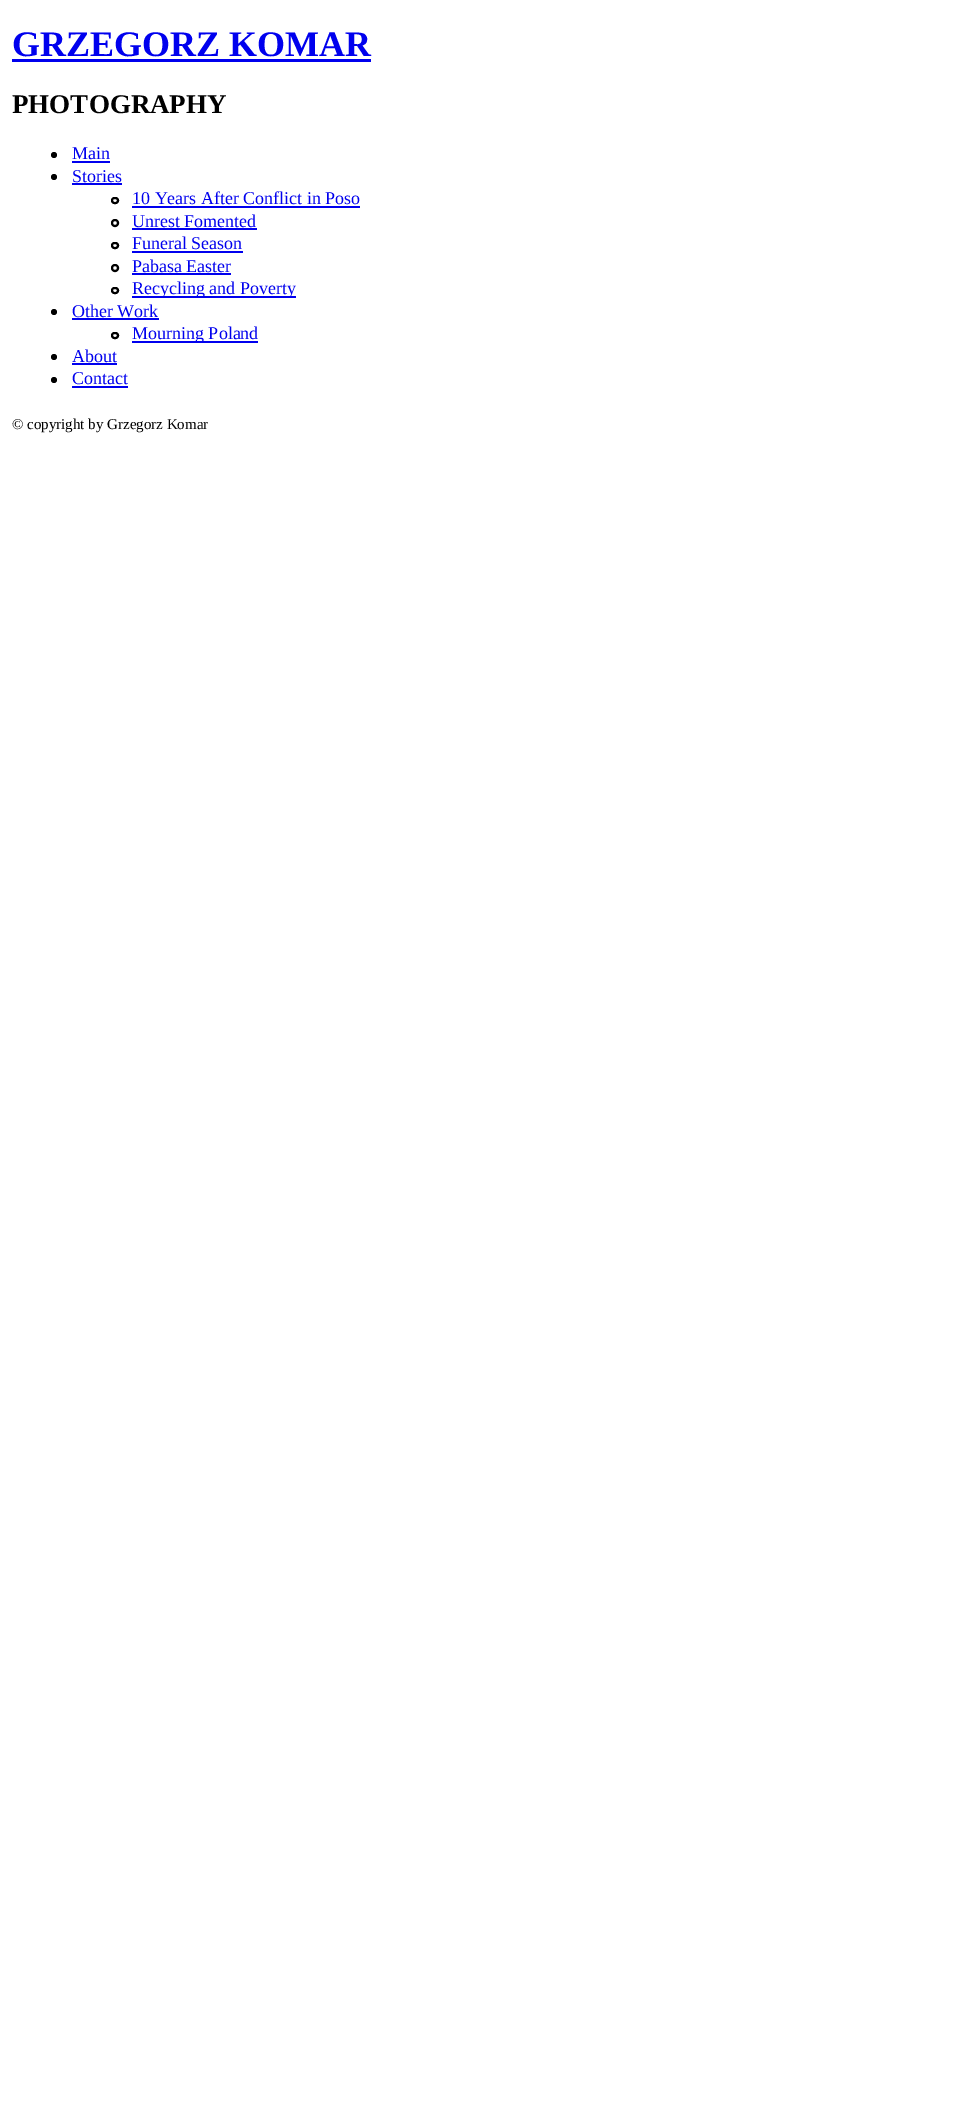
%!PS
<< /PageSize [967 2104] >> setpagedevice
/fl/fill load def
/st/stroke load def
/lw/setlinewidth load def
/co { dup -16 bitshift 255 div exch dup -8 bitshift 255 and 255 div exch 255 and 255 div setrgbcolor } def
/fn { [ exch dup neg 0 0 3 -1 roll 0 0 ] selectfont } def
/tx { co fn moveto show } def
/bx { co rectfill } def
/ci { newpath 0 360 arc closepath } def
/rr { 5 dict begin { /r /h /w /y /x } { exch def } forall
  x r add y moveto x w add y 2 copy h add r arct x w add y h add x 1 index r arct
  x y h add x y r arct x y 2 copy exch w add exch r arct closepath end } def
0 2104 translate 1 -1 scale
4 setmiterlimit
0 0 967 2104 16#FFFFFF bx
12 59 359 3 16#0000EE bx
16#000000 co
54 155 3 ci fl
72 161 38 2 16#0000EE bx
16#000000 co
54 177 3 ci fl
72 183 50 2 16#0000EE bx
16#000000 co
2 lw
112 198 6 5 2.5 rr st
132 206 228 2 16#0000EE bx
16#000000 co
115 223 3 ci st
132 228 125 2 16#0000EE bx
16#000000 co
112 243 6 5 2.5 rr st
132 251 111 2 16#0000EE bx
16#000000 co
115 268 3 ci st
132 273 99 2 16#0000EE bx
16#000000 co
112 288 6 5 2.5 rr st
132 296 164 2 16#0000EE bx
16#000000 co
54 312 3 ci fl
72 318 87 2 16#0000EE bx
16#000000 co
112 333 6 5 2.5 rr st
132 341 126 2 16#0000EE bx
16#000000 co
54 357 3 ci fl
72 363 45 2 16#0000EE bx
16#000000 co
54 380 3 ci fl
72 386 56 2 16#0000EE bx
(GRZEGORZ KOMAR) 12 56 /LiberationSerif-Bold 36 16#0000EE tx
(PHOTOGRAPHY) 12 113 /LiberationSerif-Bold 27 16#000000 tx
(Main) 72 159 /LiberationSerif-Regular 18 16#0000EE tx
(Stories) 72 182 /LiberationSerif-Regular 18 16#0000EE tx
(10 Years After Conflict in Poso) 132 204 /LiberationSerif-Regular 18 16#0000EE tx
(Unrest Fomented) 132 227 /LiberationSerif-Regular 18 16#0000EE tx
(Funeral Season) 132 249 /LiberationSerif-Regular 18 16#0000EE tx
(Pabasa Easter) 132 272 /LiberationSerif-Regular 18 16#0000EE tx
(Recycling and Poverty) 132 294 /LiberationSerif-Regular 18 16#0000EE tx
(Other Work) 72 317 /LiberationSerif-Regular 18 16#0000EE tx
(Mourning Poland) 132 339 /LiberationSerif-Regular 18 16#0000EE tx
(About) 72 362 /LiberationSerif-Regular 18 16#0000EE tx
(Contact) 72 384 /LiberationSerif-Regular 18 16#0000EE tx
(© copyright by Grzegorz Komar) 12 429 /LiberationSerif-Regular 15 16#000000 tx
showpage
